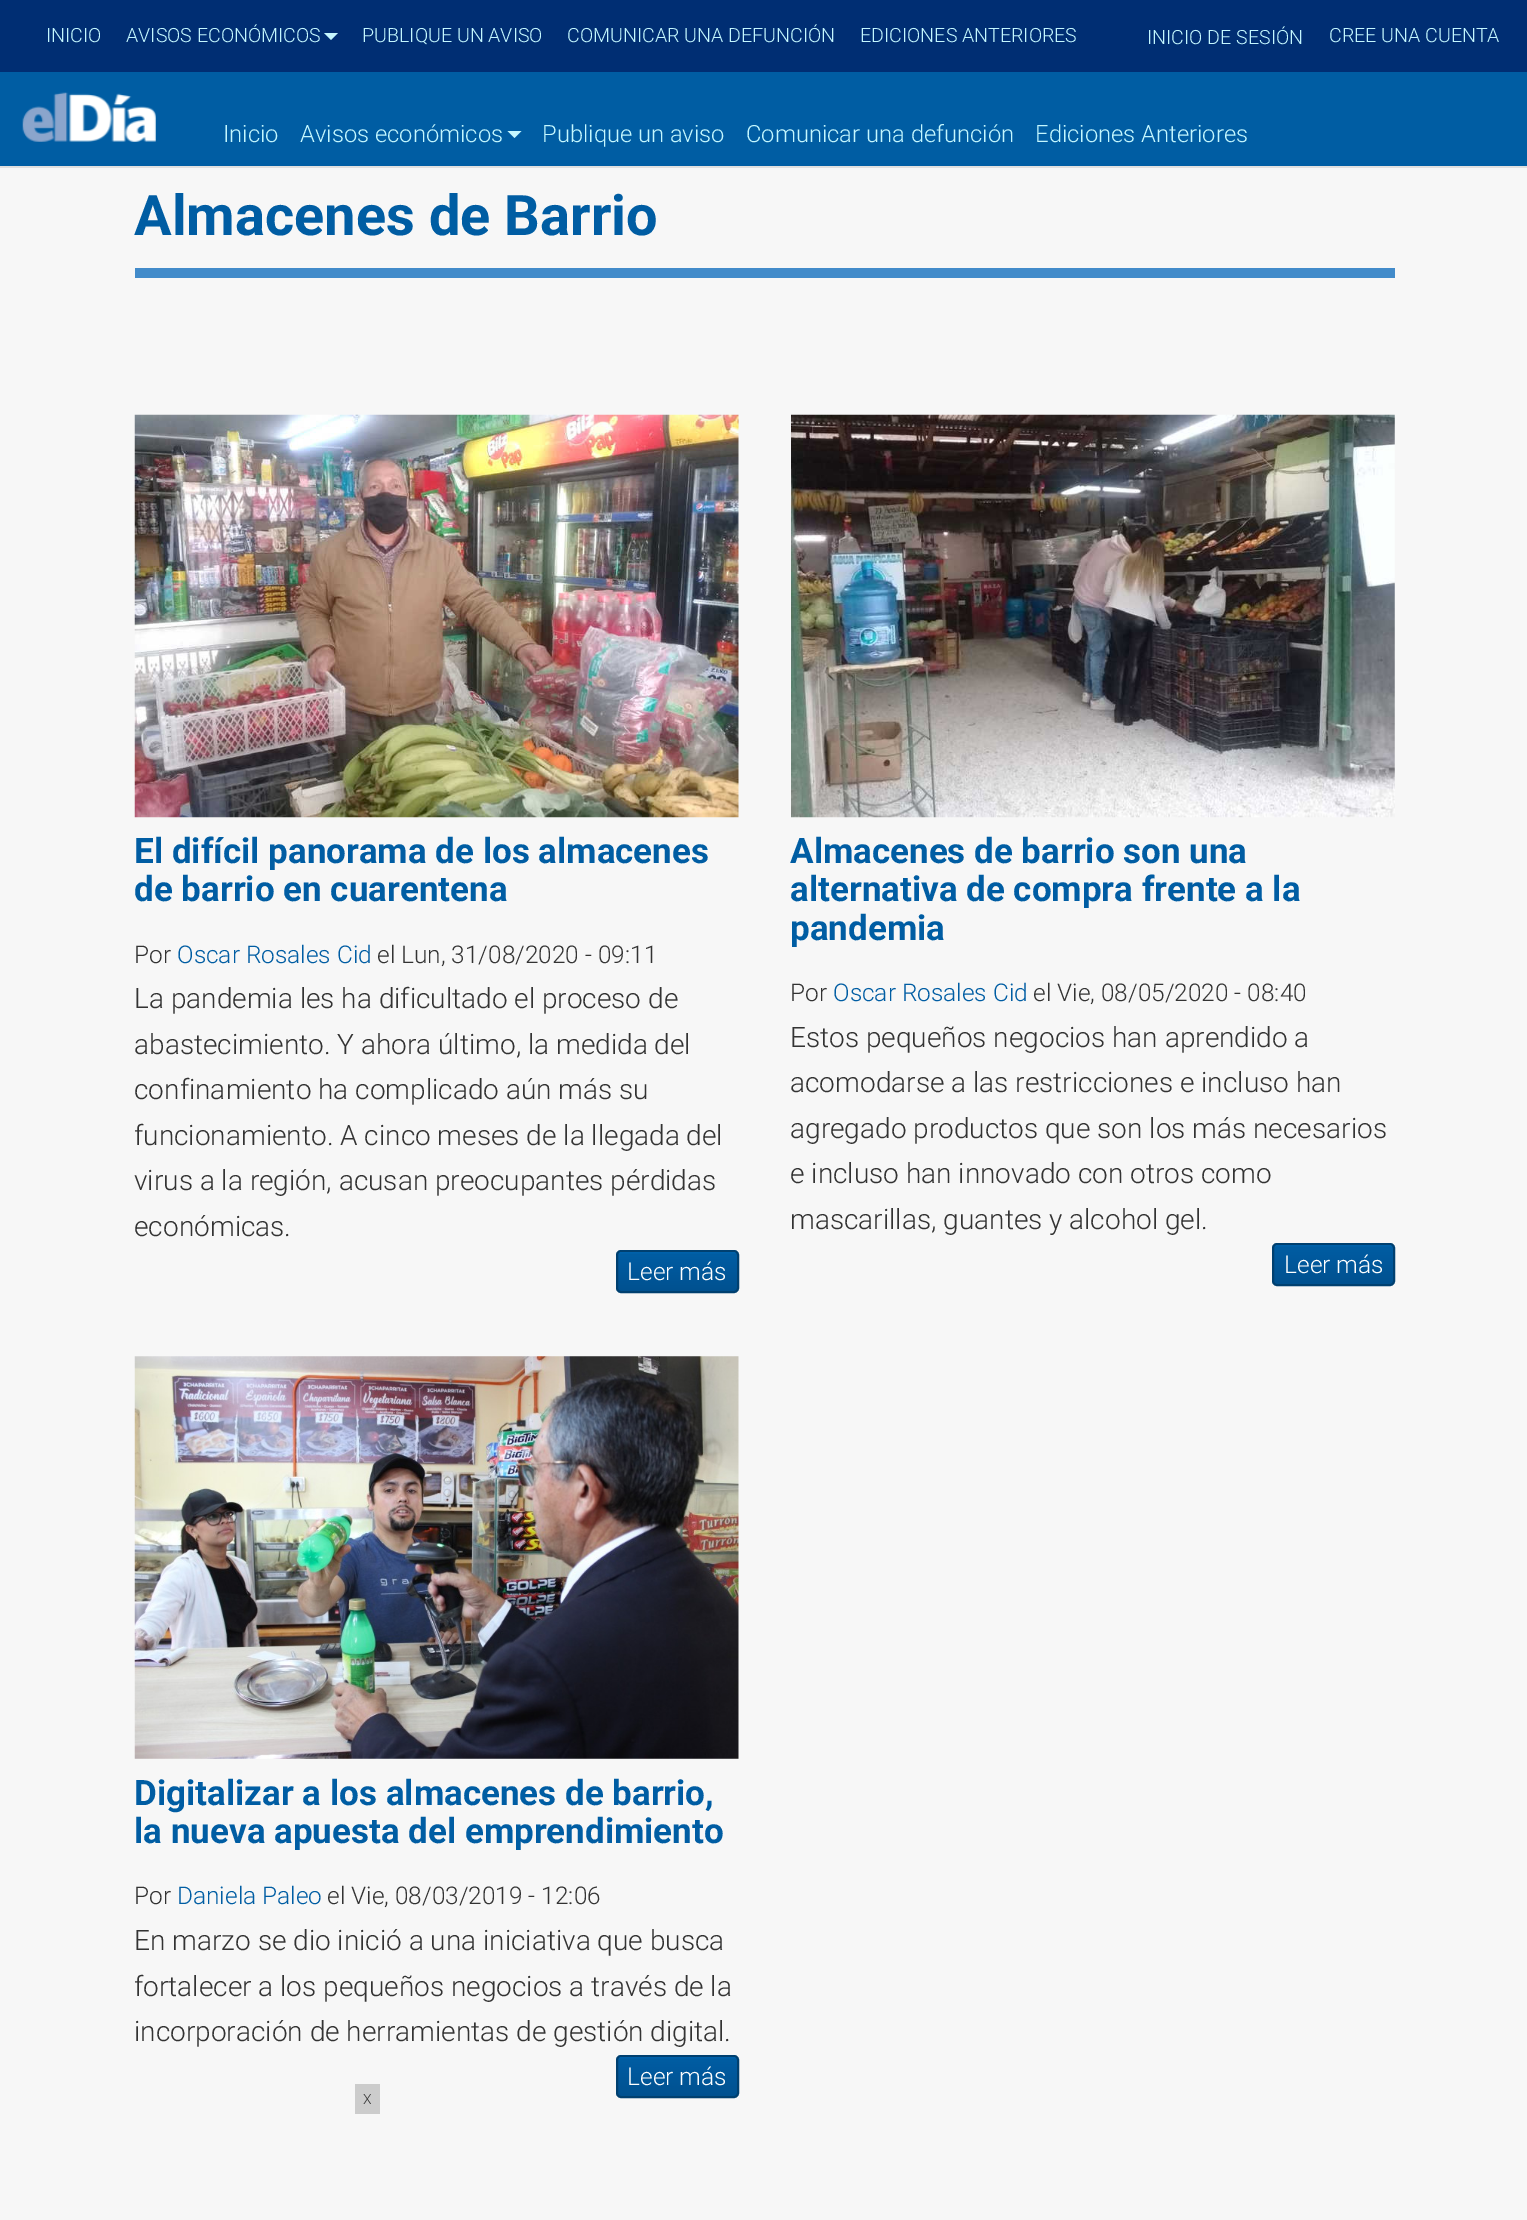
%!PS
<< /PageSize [1527 2220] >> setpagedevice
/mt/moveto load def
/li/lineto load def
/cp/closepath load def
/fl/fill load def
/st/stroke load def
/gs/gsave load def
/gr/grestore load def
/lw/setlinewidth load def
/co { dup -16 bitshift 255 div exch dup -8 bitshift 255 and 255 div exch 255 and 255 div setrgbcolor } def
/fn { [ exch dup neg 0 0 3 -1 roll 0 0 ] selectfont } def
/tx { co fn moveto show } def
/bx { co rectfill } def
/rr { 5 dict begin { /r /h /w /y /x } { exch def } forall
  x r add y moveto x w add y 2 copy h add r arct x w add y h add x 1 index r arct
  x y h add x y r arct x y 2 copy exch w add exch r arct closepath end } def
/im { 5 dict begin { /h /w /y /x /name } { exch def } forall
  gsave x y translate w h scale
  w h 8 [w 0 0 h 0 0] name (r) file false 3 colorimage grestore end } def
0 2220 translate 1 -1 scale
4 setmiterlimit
0 0 1527 2220 16#F7F7F7 bx
0 166 1527 2 16#DFDFDF bx
0 72 1527 94 16#005DA3 bx
0 0 1527 72 16#002E73 bx
16#C4F7FF co
324 33 mt 338 33 li 331 40 li cp fl
(media/1.raw) 22 92 134 50 im
507.5 131 mt 521.5 131 li 514.5 138 li cp fl
135 268 1260 10 16#428BCA bx
(media/2.raw) 134 414 605 404 im
gs 618 1252 mt 737 1252 li 737 1291 li 618 1291 li cp clip newpath
<< /ShadingType 2 /ColorSpace /DeviceRGB /Coords [677 1251 677 1292] /Extend [true true] /Function << /FunctionType 3 /Domain [0 1] /Functions [<< /FunctionType 2 /Domain [0 1] /C0 [0 .537 .937] /C1 [0 .365 .639] /N 1 >> << /FunctionType 2 /Domain [0 1] /C0 [0 .365 .639] /C1 [0 .318 .561] /N 1 >>] /Bounds [.06] /Encode [0 1 0 1] >> >> shfill gr
16#004070 co
2 lw
617 1251 121 41 4 rr st
(media/3.raw) 791 414 604 404 im
gs 1274 1245 mt 1393 1245 li 1393 1284 li 1274 1284 li cp clip newpath
<< /ShadingType 2 /ColorSpace /DeviceRGB /Coords [1334 1244 1334 1285] /Extend [true true] /Function << /FunctionType 3 /Domain [0 1] /Functions [<< /FunctionType 2 /Domain [0 1] /C0 [0 .537 .937] /C1 [0 .365 .639] /N 1 >> << /FunctionType 2 /Domain [0 1] /C0 [0 .365 .639] /C1 [0 .318 .561] /N 1 >>] /Bounds [.06] /Encode [0 1 0 1] >> >> shfill gr
1273 1244 121 41 4 rr st
(media/4.raw) 134 1356 605 403 im
gs 618 2057 mt 737 2057 li 737 2096 li 618 2096 li cp clip newpath
<< /ShadingType 2 /ColorSpace /DeviceRGB /Coords [677 2056 677 2097] /Extend [true true] /Function << /FunctionType 3 /Domain [0 1] /Functions [<< /FunctionType 2 /Domain [0 1] /C0 [0 .537 .937] /C1 [0 .365 .639] /N 1 >> << /FunctionType 2 /Domain [0 1] /C0 [0 .365 .639] /C1 [0 .318 .561] /N 1 >>] /Bounds [.06] /Encode [0 1 0 1] >> >> shfill gr
617 2056 121 41 4 rr st
355 2084 25 30 16#CCCCCC bx
(INICIO) 46 42 /Roboto-Light 19.6 16#C4F7FF tx
(AVISOS ECONÓMICOS) 126 42 /Roboto-Light 19.6 16#C4F7FF tx
(PUBLIQUE UN AVISO) 362 42 /Roboto-Light 19.6 16#C4F7FF tx
(COMUNICAR UNA DEFUNCIÓN) 567 42 /Roboto-Light 19.6 16#C4F7FF tx
(EDICIONES ANTERIORES) 860 42 /Roboto-Light 19.6 16#C4F7FF tx
(INICIO DE SESIÓN) 1147 44 /Roboto-Light 19.6 16#C4F7FF tx
(CREE UNA CUENTA) 1329 42 /Roboto-Light 19.6 16#C4F7FF tx
(Inicio) 223 142 /Roboto-Light 23.75 16#C4F7FF tx
(Avisos económicos) 300 142 /Roboto-Light 23.75 16#C4F7FF tx
(Publique un aviso) 542 142 /Roboto-Light 23.75 16#C4F7FF tx
(Comunicar una defunción) 746 142 /Roboto-Light 23.75 16#C4F7FF tx
(Ediciones Anteriores) 1035 142 /Roboto-Light 23.75 16#C4F7FF tx
(Almacenes de Barrio) 134 235 /Roboto-Bold 56 16#005DA3 tx
(El difícil panorama de los almacenes) 134 863 /Roboto-Bold 35 16#005DA3 tx
(de barrio en cuarentena) 134 901 /Roboto-Bold 35 16#005DA3 tx
(Por) 134 963 /Roboto-Light 24.4 16#333333 tx
(Oscar Rosales Cid) 177 963 /Roboto-Light 24.4 16#005DA3 tx
(el Lun, 31/08/2020 - 09:11) 377 963 /Roboto-Light 24.4 16#333333 tx
(La pandemia les ha dificultado el proceso de) 134 1008 /Roboto-Light 28 16#333333 tx
(abastecimiento. Y ahora último, la medida del) 134 1054 /Roboto-Light 28 16#333333 tx
(confinamiento ha complicado aún más su) 134 1099 /Roboto-Light 28 16#333333 tx
(funcionamiento. A cinco meses de la llegada del) 134 1145 /Roboto-Light 28 16#333333 tx
(virus a la región, acusan preocupantes pérdidas) 134 1190 /Roboto-Light 28 16#333333 tx
(económicas.) 134 1236 /Roboto-Light 28 16#333333 tx
(Leer más) 627 1280 /Roboto-Light 24.5 16#FFFFFF tx
(Almacenes de barrio son una) 790 863 /Roboto-Bold 35 16#005DA3 tx
(alternativa de compra frente a la) 790 901 /Roboto-Bold 35 16#005DA3 tx
(pandemia) 790 940 /Roboto-Bold 35 16#005DA3 tx
(Por) 790 1001 /Roboto-Light 24.4 16#333333 tx
(Oscar Rosales Cid) 833 1001 /Roboto-Light 24.4 16#005DA3 tx
(el Vie, 08/05/2020 - 08:40) 1033 1001 /Roboto-Light 24.4 16#333333 tx
(Estos pequeños negocios han aprendido a) 790 1047 /Roboto-Light 28 16#333333 tx
(acomodarse a las restricciones e incluso han) 790 1092 /Roboto-Light 28 16#333333 tx
(agregado productos que son los más necesarios) 790 1138 /Roboto-Light 28 16#333333 tx
(e incluso han innovado con otros como) 790 1183 /Roboto-Light 28 16#333333 tx
(mascarillas, guantes y alcohol gel.) 790 1229 /Roboto-Light 28 16#333333 tx
(Leer más) 1284 1273 /Roboto-Light 24.5 16#FFFFFF tx
(Digitalizar a los almacenes de barrio,) 134 1805 /Roboto-Bold 35 16#005DA3 tx
(la nueva apuesta del emprendimiento) 134 1843 /Roboto-Bold 35 16#005DA3 tx
(Por) 134 1904 /Roboto-Light 24.4 16#333333 tx
(Daniela Paleo) 177 1904 /Roboto-Light 24.4 16#005DA3 tx
(el Vie, 08/03/2019 - 12:06) 327 1904 /Roboto-Light 24.4 16#333333 tx
(En marzo se dio inició a una iniciativa que busca) 134 1950 /Roboto-Light 28 16#333333 tx
(fortalecer a los pequeños negocios a través de la) 134 1996 /Roboto-Light 28 16#333333 tx
(incorporación de herramientas de gestión digital.) 134 2041 /Roboto-Light 28 16#333333 tx
(Leer más) 627 2085 /Roboto-Light 24.5 16#FFFFFF tx
(X) 363 2104 /Roboto-Light 14 16#333333 tx
showpage
